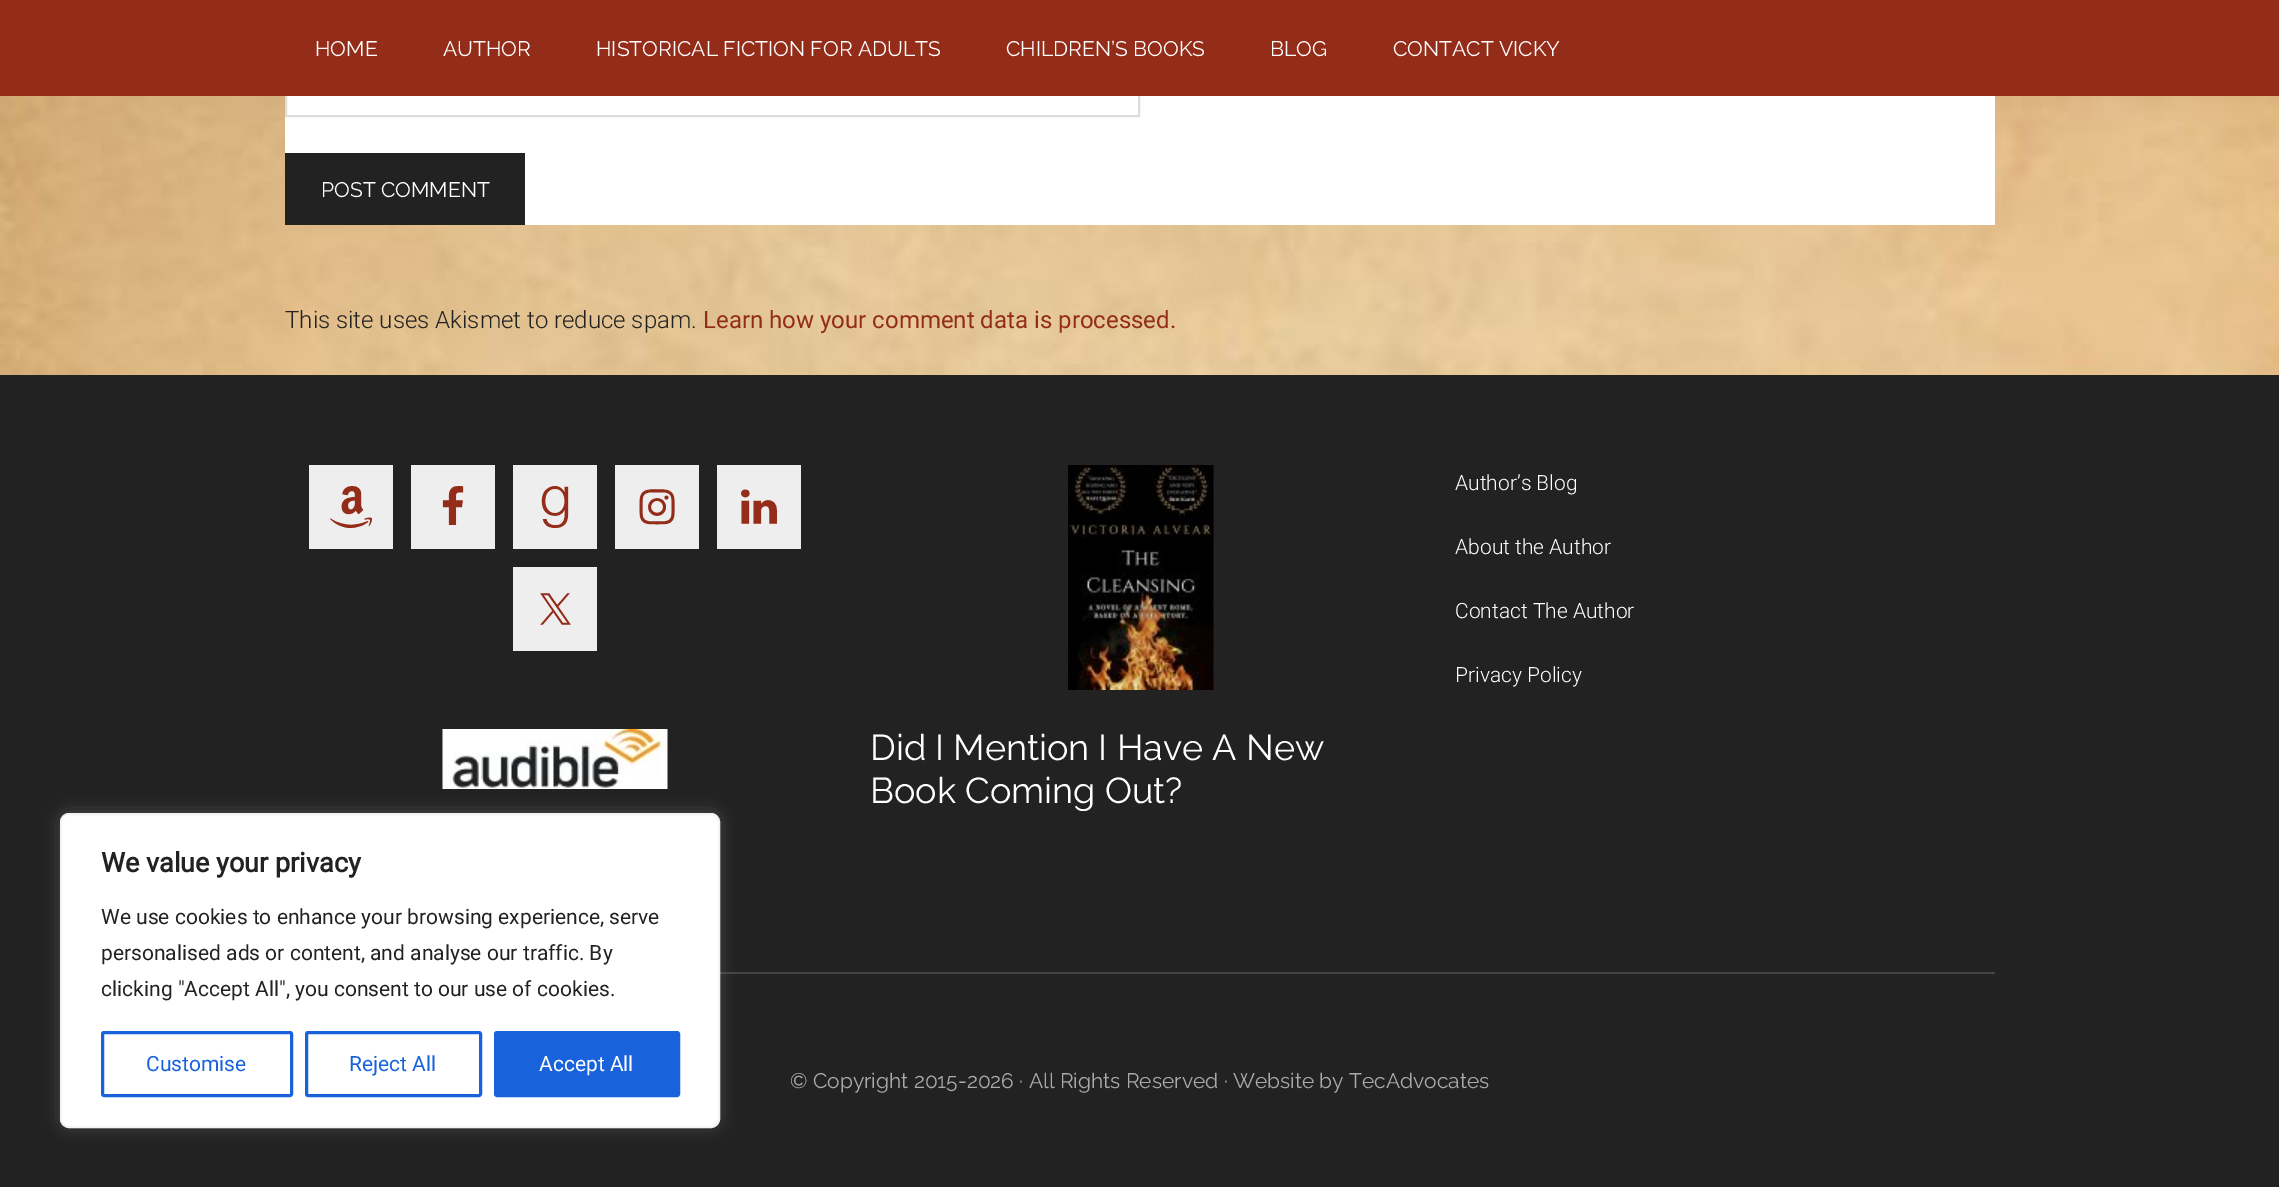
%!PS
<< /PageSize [2279 1187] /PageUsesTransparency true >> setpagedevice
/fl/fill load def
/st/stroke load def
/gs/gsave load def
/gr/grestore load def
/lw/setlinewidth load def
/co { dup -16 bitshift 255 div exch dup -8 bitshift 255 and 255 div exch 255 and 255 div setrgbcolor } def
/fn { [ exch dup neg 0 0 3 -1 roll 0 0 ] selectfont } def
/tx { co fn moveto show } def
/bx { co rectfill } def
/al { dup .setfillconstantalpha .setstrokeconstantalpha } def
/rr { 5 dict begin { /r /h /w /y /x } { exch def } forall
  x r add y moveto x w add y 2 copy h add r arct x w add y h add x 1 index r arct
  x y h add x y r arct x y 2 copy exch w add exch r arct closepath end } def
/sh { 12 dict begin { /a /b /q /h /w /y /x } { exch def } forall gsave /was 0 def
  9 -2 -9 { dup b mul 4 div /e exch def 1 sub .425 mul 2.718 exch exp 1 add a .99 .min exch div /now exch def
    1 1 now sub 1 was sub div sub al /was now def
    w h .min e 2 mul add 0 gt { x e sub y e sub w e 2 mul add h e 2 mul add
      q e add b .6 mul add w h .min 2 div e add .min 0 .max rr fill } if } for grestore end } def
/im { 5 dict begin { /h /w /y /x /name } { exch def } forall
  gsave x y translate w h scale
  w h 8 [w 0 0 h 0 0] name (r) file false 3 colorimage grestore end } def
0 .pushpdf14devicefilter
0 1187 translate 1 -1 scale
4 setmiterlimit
0 0 2279 1187 16#FFFFFF bx
(media/1.raw) 0 96 2279 279 im
285 96 1710 129 16#FFFFFF bx
16#DDDDDD co
2 lw
286 43 853 73 rectstroke
0 0 2279 96 16#932C19 bx
285 153 240 72 16#222222 bx
0 375 2279 812 16#222222 bx
309 465 84 84 16#EEEEEE bx
(media/2.raw) 330 486 42 42 im
411 465 84 84 16#EEEEEE bx
(media/3.raw) 442 486 22 39 im
513 465 84 84 16#EEEEEE bx
(media/4.raw) 541 486 28 42 im
615 465 84 84 16#EEEEEE bx
(media/5.raw) 639 489 36 36 im
717 465 84 84 16#EEEEEE bx
(media/6.raw) 741 489 36 35 im
513 567 84 84 16#EEEEEE bx
(media/7.raw) 540 593 31 32 im
(media/8.raw) 442 729 226 60 im
(media/9.raw) 1068 465 146 225 im
720 972 1275 2 16#444444 bx
16#ACABAB co
60 812 660 315 9 7.5 .3 sh
16#FFFFFF co
61 814 658 313 8 rr gs fl gr
16#F4F4F4 co
st
16#1863DC co
3 lw
102.5 1032.5 189 63 1.5 rr st
306.5 1032.5 174 63 1.5 rr st
495.5 1032.5 183 63 1.5 rr gs fl gr
st
(HOME) 315 56 /Raleway-Regular 21 16#FFFFFF tx
(AUTHOR) 443 56 /Raleway-Regular 21 16#FFFFFF tx
(HISTORICAL FICTION FOR ADULTS) 596 56 /Raleway-Regular 21 16#FFFFFF tx
(CHILDREN’S BOOKS) 1006 56 /Raleway-Regular 21 16#FFFFFF tx
(BLOG) 1270 56 /Raleway-Regular 21 16#FFFFFF tx
(CONTACT VICKY) 1393 56 /Raleway-Regular 21 16#FFFFFF tx
(POST COMMENT) 321 197 /Raleway-Regular 21 16#FFFFFF tx
(This site uses Akismet to reduce spam.) 285 328 /Roboto-Light 24 16#222222 tx
(Learn how your comment data is processed.) 703 328 /Roboto-Regular 24 16#932C19 tx
(Author’s Blog) 1455 490 /Roboto-Light 21 16#FFFFFF tx
(About the Author) 1455 554 /Roboto-Light 21 16#FFFFFF tx
(Contact The Author) 1455 618 /Roboto-Light 21 16#FFFFFF tx
(Privacy Policy) 1455 682 /Roboto-Light 21 16#FFFFFF tx
(Did I Mention I Have A New) 870 760 /Raleway-Regular 36 16#FFFFFF tx
(Book Coming Out?) 870 803 /Raleway-Regular 36 16#FFFFFF tx
(© Copyright 2015-2026 · All Rights Reserved · Website by TecAdvocates) 790 1088 /Raleway-Regular 21 16#AAAAAA tx
(We value your privacy) 101 872 /Roboto-Bold 27 16#222222 tx
(We use cookies to enhance your browsing experience, serve) 101 924 /Roboto-Regular 21 16#222222 tx
(personalised ads or content, and analyse our traffic. By) 101 960 /Roboto-Regular 21 16#222222 tx
(clicking "Accept All", you consent to our use of cookies.) 101 996 /Roboto-Regular 21 16#222222 tx
(Customise) 146 1071 /Roboto-Regular 21 16#1863DC tx
(Reject All) 349 1071 /Roboto-Regular 21 16#1863DC tx
(Accept All) 539 1071 /Roboto-Regular 21 16#FFFFFF tx
.poppdf14devicefilter showpage
